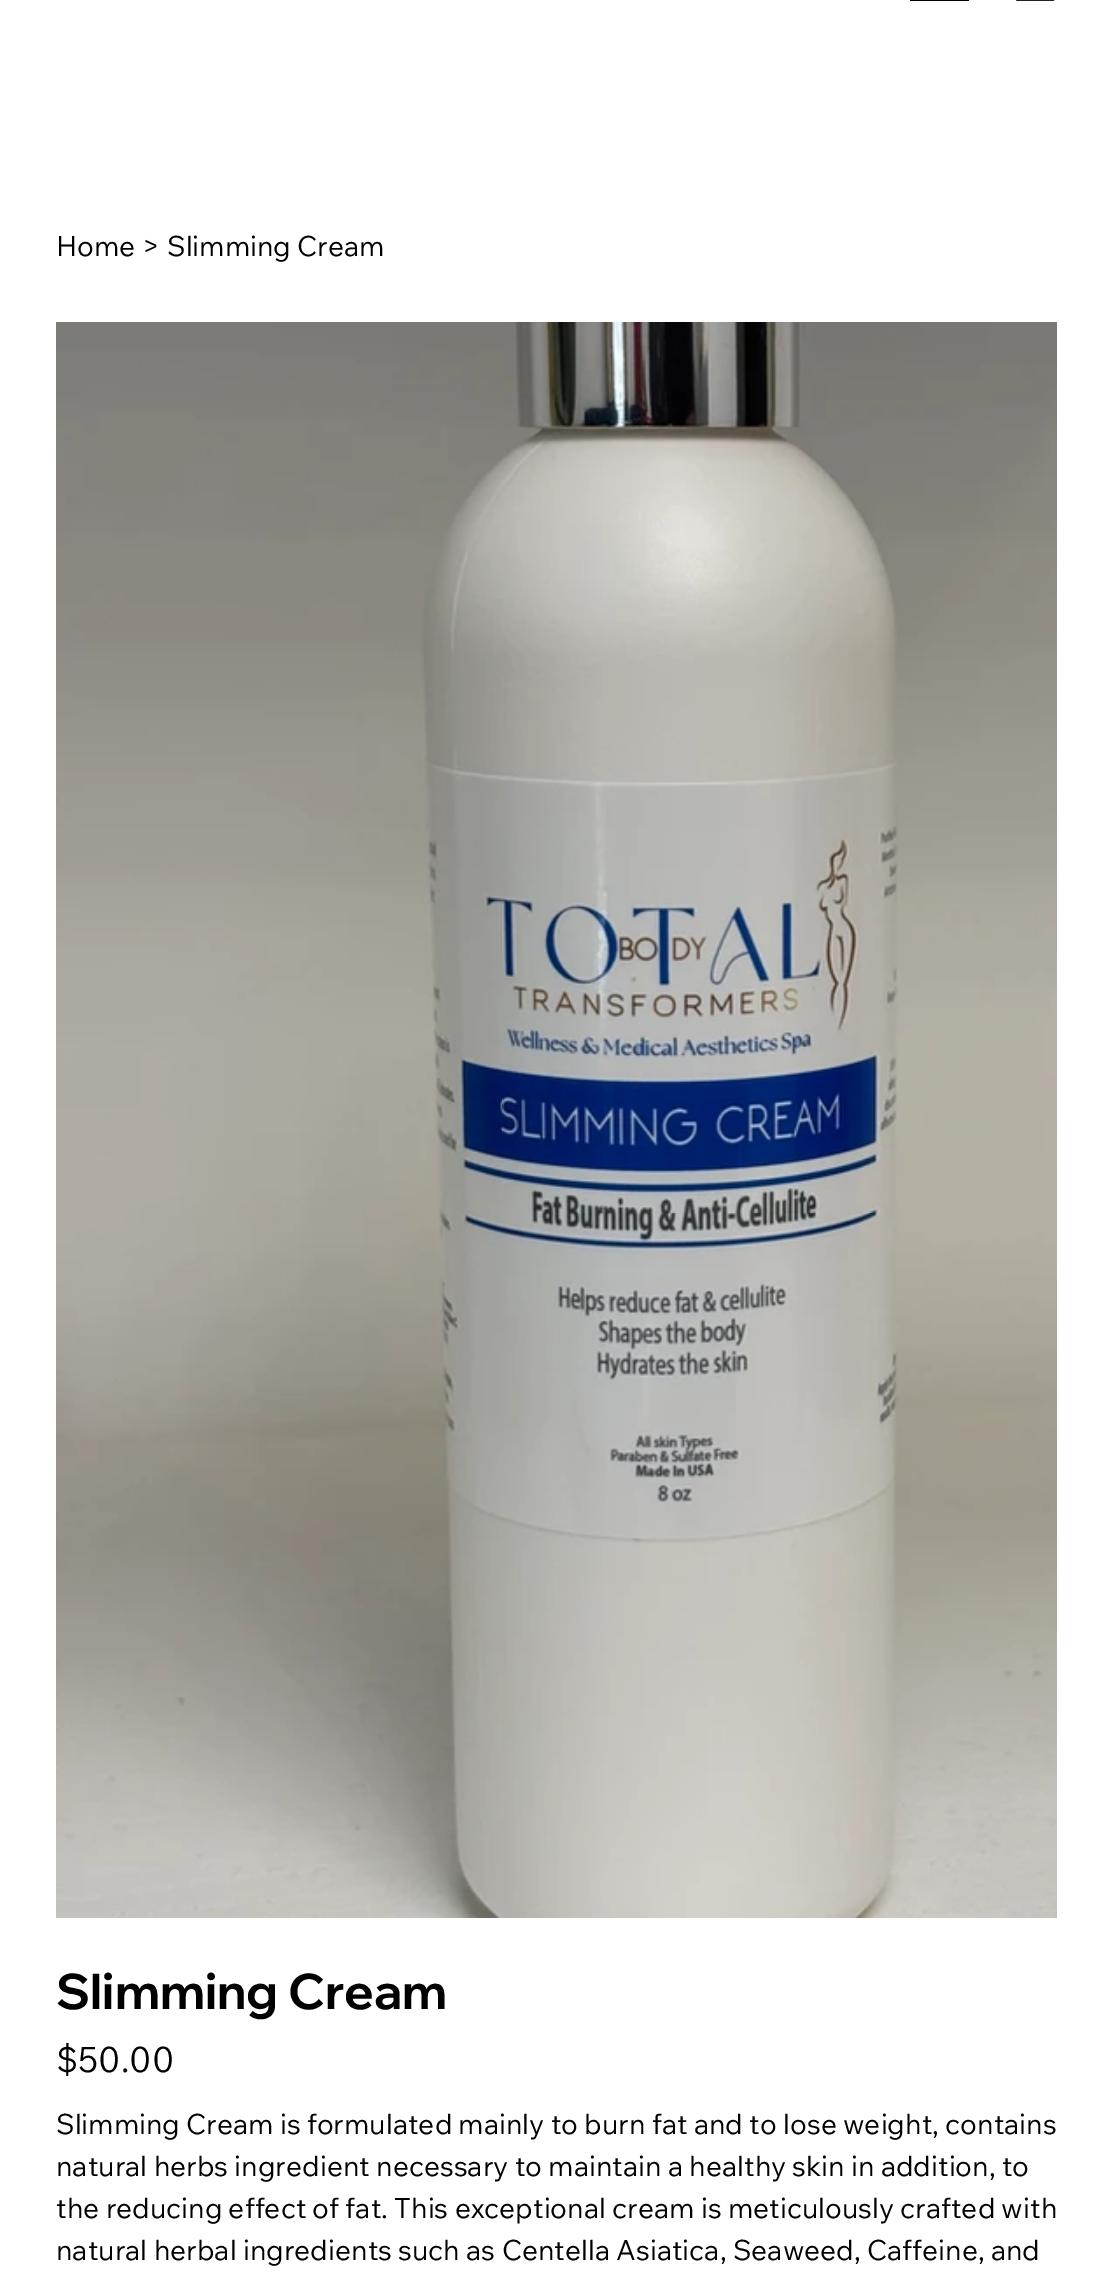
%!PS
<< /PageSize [1112 2294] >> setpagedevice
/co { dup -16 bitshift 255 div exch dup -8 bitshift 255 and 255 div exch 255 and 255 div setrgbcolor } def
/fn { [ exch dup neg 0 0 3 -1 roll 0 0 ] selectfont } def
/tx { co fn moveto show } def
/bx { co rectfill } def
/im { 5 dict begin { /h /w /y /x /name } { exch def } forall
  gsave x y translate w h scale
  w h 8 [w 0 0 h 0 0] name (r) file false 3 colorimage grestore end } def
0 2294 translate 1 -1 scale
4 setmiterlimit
0 0 1112 2294 16#FFFFFF bx
910 0 59 1 16#000000 bx
(media/1.raw) 1016 0 39 1 im
(media/2.raw) 56 322 1001 1596 im
(Home) 56 256 /WixMadeforText-Regular 28 16#000000 tx
(>) 142 256 /WixMadeforText-Regular 28 16#000000 tx
(Slimming Cream) 167 256 /WixMadeforText-Regular 28 16#000000 tx
(Slimming Cream) 56 2009 /WixMadeforDisplay-Bold 49 16#000000 tx
($50.00) 56 2072 /WixMadeforText-Regular 35 16#000000 tx
(Slimming Cream is formulated mainly to burn fat and to lose weight, contains) 56 2134 /WixMadeforText-Regular 28 16#000000 tx
(natural herbs ingredient necessary to maintain a healthy skin in addition, to) 56 2176 /WixMadeforText-Regular 28 16#000000 tx
(the reducing effect of fat. This exceptional cream is meticulously crafted with) 56 2218 /WixMadeforText-Regular 28 16#000000 tx
(natural herbal ingredients such as Centella Asiatica, Seaweed, Caffeine, and) 56 2260 /WixMadeforText-Regular 28 16#000000 tx
showpage
